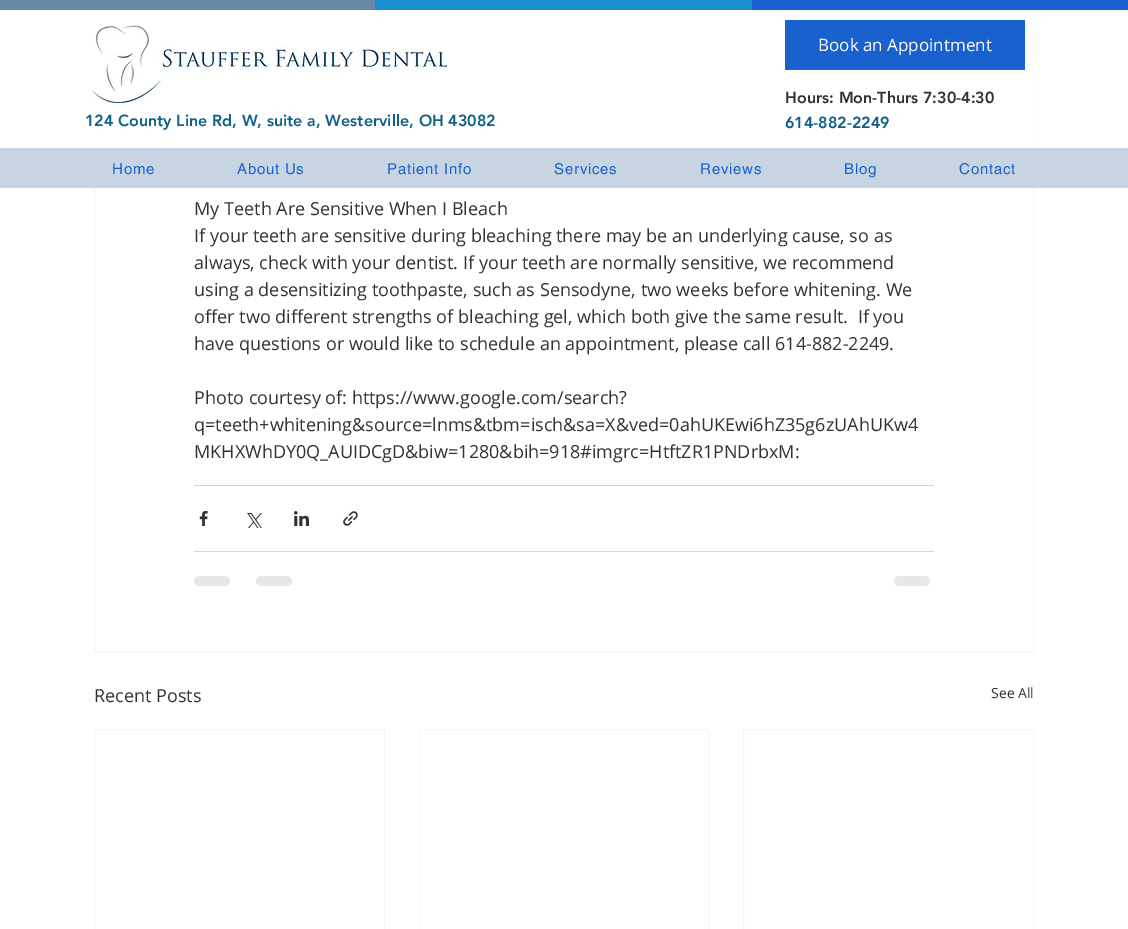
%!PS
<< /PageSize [1128 929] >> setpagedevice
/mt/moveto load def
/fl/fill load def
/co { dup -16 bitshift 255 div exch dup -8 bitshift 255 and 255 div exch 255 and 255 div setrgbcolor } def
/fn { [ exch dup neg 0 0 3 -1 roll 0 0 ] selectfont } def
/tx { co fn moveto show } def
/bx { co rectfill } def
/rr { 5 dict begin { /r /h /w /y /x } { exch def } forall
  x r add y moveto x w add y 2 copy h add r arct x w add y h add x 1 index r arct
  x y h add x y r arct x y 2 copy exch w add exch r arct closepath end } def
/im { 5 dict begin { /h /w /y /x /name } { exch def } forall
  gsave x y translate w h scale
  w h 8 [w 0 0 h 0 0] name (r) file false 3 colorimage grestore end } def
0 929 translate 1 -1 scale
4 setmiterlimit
0 0 1128 929 16#FFFFFF bx
16#F5F5F5 co
94.5 -.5 939 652 rectstroke
94 10 940 138 16#FFFFFF bx
0 0 375 10 16#6A8AA4 bx
375 0 377 10 16#1990CE bx
752 0 376 10 16#1961CE bx
(media/1.raw) 89 25 358 78 im
785 20 240 50 16#1961CE bx
0 148 1128 40 16#C6D5E1 bx
194 485 740 1 16#D6D6D6 bx
(media/2.raw) 199 511 9 15 im
(media/3.raw) 247 513 15 15 im
(media/4.raw) 294 511 15 15 im
(media/5.raw) 343 511 15 15 im
194 551 740 1 16#D6D6D6 bx
16#E7E7E7 co
194 576 36 10 5 rr fl
256 576 36 10 5 rr fl
894 576 36 10 5 rr fl
16#F5F5F5 co
94.5 729.5 290 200 rectstroke
419.5 729.5 289 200 rectstroke
743.5 729.5 290 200 rectstroke
(Book an Appointment) 818 51 /OpenSans-Regular 17 16#FFFFFF tx
(Hours: Mon-Thurs 7:30-4:30) 785 103 /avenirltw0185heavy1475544-Black 16 16#333333 tx
(124 County Line Rd, W, suite a, Westerville, OH 43082) 85 126 /avenirltw0185heavy1475544-Black 16 16#116089 tx
(614-882-2249) 785 128 /avenirltw0185heavy1475544-Black 16 16#116089 tx
/helvetica-Regular 15 fn
16#1961CE co
112 174 mt .75 0 (Home) ashow
237 174 mt .75 0 (About Us) ashow
387 174 mt .75 0 (Patient Info) ashow
554 174 mt .75 0 (Services) ashow
700 174 mt .75 0 (Reviews) ashow
844 174 mt .75 0 (Blog) ashow
959 174 mt .75 0 (Contact) ashow
(My Teeth Are Sensitive When I Bleach) 194 215 /OpenSans-Regular 18 16#333333 tx
(If your teeth are sensitive during bleaching there may be an underlying cause, so as) 194 242 /OpenSans-Regular 18 16#333333 tx
(always, check with your dentist. If your teeth are normally sensitive, we recommend) 194 269 /OpenSans-Regular 18 16#333333 tx
(using a desensitizing toothpaste, such as Sensodyne, two weeks before whitening. We) 194 296 /OpenSans-Regular 18 16#333333 tx
(offer two different strengths of bleaching gel, which both give the same result.  If you) 194 323 /OpenSans-Regular 18 16#333333 tx
(have questions or would like to schedule an appointment, please call 614-882-2249.) 194 350 /OpenSans-Regular 18 16#333333 tx
(Photo courtesy of: https://www.google.com/search?) 194 404 /OpenSans-Regular 18 16#333333 tx
(q=teeth+whitening&source=lnms&tbm=isch&sa=X&ved=0ahUKEwi6hZ35g6zUAhUKw4) 194 431 /OpenSans-Regular 18 16#333333 tx
(MKHXWhDY0Q_AUIDCgD&biw=1280&bih=918#imgrc=HtftZR1PNDrbxM:) 194 458 /OpenSans-Regular 18 16#333333 tx
(Recent Posts) 94 702 /OpenSans-Regular 18 16#333333 tx
(See All) 991 698 /OpenSans-Regular 14 16#333333 tx
showpage
